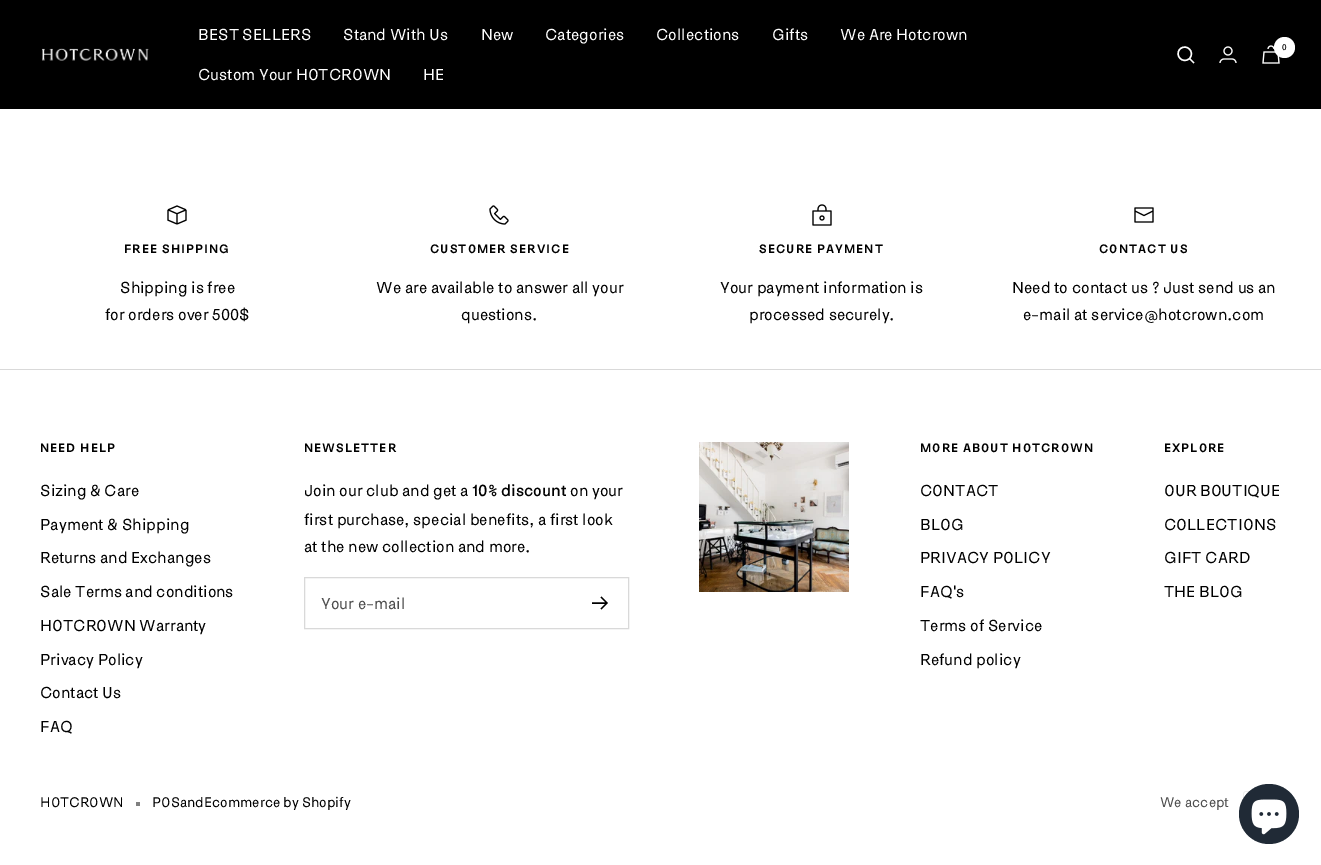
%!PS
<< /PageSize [1321 865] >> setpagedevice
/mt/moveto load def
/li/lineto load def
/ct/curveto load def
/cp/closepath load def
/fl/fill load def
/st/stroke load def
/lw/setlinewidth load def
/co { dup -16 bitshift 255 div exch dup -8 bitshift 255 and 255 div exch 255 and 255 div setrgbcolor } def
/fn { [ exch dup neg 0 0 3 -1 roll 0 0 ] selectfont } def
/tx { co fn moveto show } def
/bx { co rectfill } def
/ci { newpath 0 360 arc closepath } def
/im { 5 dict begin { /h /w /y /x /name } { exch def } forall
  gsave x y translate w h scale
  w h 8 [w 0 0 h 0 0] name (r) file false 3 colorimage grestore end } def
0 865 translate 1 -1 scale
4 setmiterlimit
0 0 1321 865 16#FFFFFF bx
0 0 1321 109 16#000000 bx
(media/1.raw) 42 48 107 13 im
16#FFFFFF co
1.4 lw
1189.5 58.5 mt 1195.5 52 1186.5 43 1180 49 ct 1174 55.5 1183 64.5 1189.5 58.5 ct cp 1189.5 58.5 mt 1194 63 li st
(media/2.raw) 1219 46 18 17 im
(media/3.raw) 1262 45 18 19 im
1284.5 47.5 10.5 ci fl
(media/4.raw) 167 205 20 20 im
(media/5.raw) 489 205 20 20 im
(media/6.raw) 812 204 20 22 im
(media/7.raw) 1134 207 20 16 im
0 369 1321 1 16#D9D9D9 bx
1 lw
304.5 577.5 324 51 rectstroke
16#000000 co
1.4 lw
592 603 mt 607 603 li 601 597 mt 607 603 li 601 609 li st
(media/8.raw) 699 442 150 150 im
136 802 4 4 16#808080 bx
(media/9.raw) 1243 791 7 8 im
16#202A36 co
1269 814 30 ci fl
(media/10.raw) 1251 799 36 36 im
(BEST SELLERS) 198 40 /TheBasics-Regular 16 16#FFFFFF tx
(Stand With Us) 343 40 /TheBasics-Regular 16 16#FFFFFF tx
(New) 481 40 /TheBasics-Regular 16 16#FFFFFF tx
(Categories) 545 40 /TheBasics-Regular 16 16#FFFFFF tx
(Collections) 656 40 /TheBasics-Regular 16 16#FFFFFF tx
(Gifts) 772 40 /TheBasics-Regular 16 16#FFFFFF tx
(We Are Hotcrown) 840 40 /TheBasics-Regular 16 16#FFFFFF tx
(Custom Your HOTCROWN) 198 80 /TheBasics-Regular 16 16#FFFFFF tx
(HE) 423 80 /TheBasics-Regular 16 16#FFFFFF tx
(0) 1282 50 /Assistant-SemiBold 9 16#000000 tx
/TheBasics-Bold 12 fn
124 253 mt 1 0 (FREE SHIPPING) ashow
(Shipping is free) 120 293 /TheBasics-Regular 16 16#000000 tx
(for orders over 500$) 105 320 /TheBasics-Regular 16 16#000000 tx
/TheBasics-Bold 12 fn
430 253 mt 1 0 (CUSTOMER SERVICE) ashow
(We are available to answer all your) 376 293 /TheBasics-Regular 16 16#000000 tx
(questions.) 461 320 /TheBasics-Regular 16 16#000000 tx
/TheBasics-Bold 12 fn
759 253 mt 1 0 (SECURE PAYMENT) ashow
(Your payment information is) 720 293 /TheBasics-Regular 16 16#000000 tx
(processed securely.) 749 320 /TheBasics-Regular 16 16#000000 tx
/TheBasics-Bold 12 fn
1099 253 mt 1 0 (CONTACT US) ashow
(Need to contact us ? Just send us an) 1012 293 /TheBasics-Regular 16 16#000000 tx
(e-mail at service@hotcrown.com) 1023 320 /TheBasics-Regular 16 16#000000 tx
/TheBasics-Bold 12 fn
40 452 mt 1 0 (NEED HELP) ashow
(Sizing & Care) 40 496 /TheBasics-Regular 16 16#000000 tx
(Payment & Shipping) 40 530 /TheBasics-Regular 16 16#000000 tx
(Returns and Exchanges) 40 563 /TheBasics-Regular 16 16#000000 tx
(Sale Terms and conditions) 40 597 /TheBasics-Regular 16 16#000000 tx
(HOTCROWN Warranty) 40 631 /TheBasics-Regular 16 16#000000 tx
(Privacy Policy) 40 665 /TheBasics-Regular 16 16#000000 tx
(Contact Us) 40 698 /TheBasics-Regular 16 16#000000 tx
(FAQ) 40 732 /TheBasics-Regular 16 16#000000 tx
/TheBasics-Bold 12 fn
304 452 mt 1 0 (NEWSLETTER) ashow
(Join our club and get a) 304 496 /TheBasics-Regular 16 16#000000 tx
(10% discount) 472 496 /TheBasics-Medium 16 16#000000 tx
(on your) 570 496 /TheBasics-Regular 16 16#000000 tx
(first purchase, special benefits, a first look) 304 525 /TheBasics-Regular 16 16#000000 tx
(at the new collection and more.) 304 552 /TheBasics-Regular 16 16#000000 tx
(Your e-mail) 321 609 /TheBasics-Regular 16 16#4D4D4D tx
/TheBasics-Bold 12 fn
16#000000 co
920 452 mt 1 0 (MORE ABOUT HOTCROWN) ashow
(CONTACT) 920 496 /TheBasics-Regular 16 16#000000 tx
(BLOG) 920 530 /TheBasics-Regular 16 16#000000 tx
(PRIVACY POLICY) 920 563 /TheBasics-Regular 16 16#000000 tx
(FAQ's) 920 597 /TheBasics-Regular 16 16#000000 tx
(Terms of Service) 920 631 /TheBasics-Regular 16 16#000000 tx
(Refund policy) 920 665 /TheBasics-Regular 16 16#000000 tx
/TheBasics-Bold 12 fn
1164 452 mt 1 0 (EXPLORE) ashow
(OUR BOUTIQUE) 1164 496 /TheBasics-Regular 16 16#000000 tx
(COLLECTIONS) 1164 530 /TheBasics-Regular 16 16#000000 tx
(GIFT CARD) 1164 563 /TheBasics-Regular 16 16#000000 tx
(THE BLOG) 1164 597 /TheBasics-Regular 16 16#000000 tx
(HOTCROWN) 40 807 /TheBasics-Regular 14 16#000000 tx
(POSandEcommerce by Shopify) 152 807 /TheBasics-Regular 14 16#000000 tx
(We accept) 1160 807 /TheBasics-Regular 14 16#4D4D4D tx
showpage
